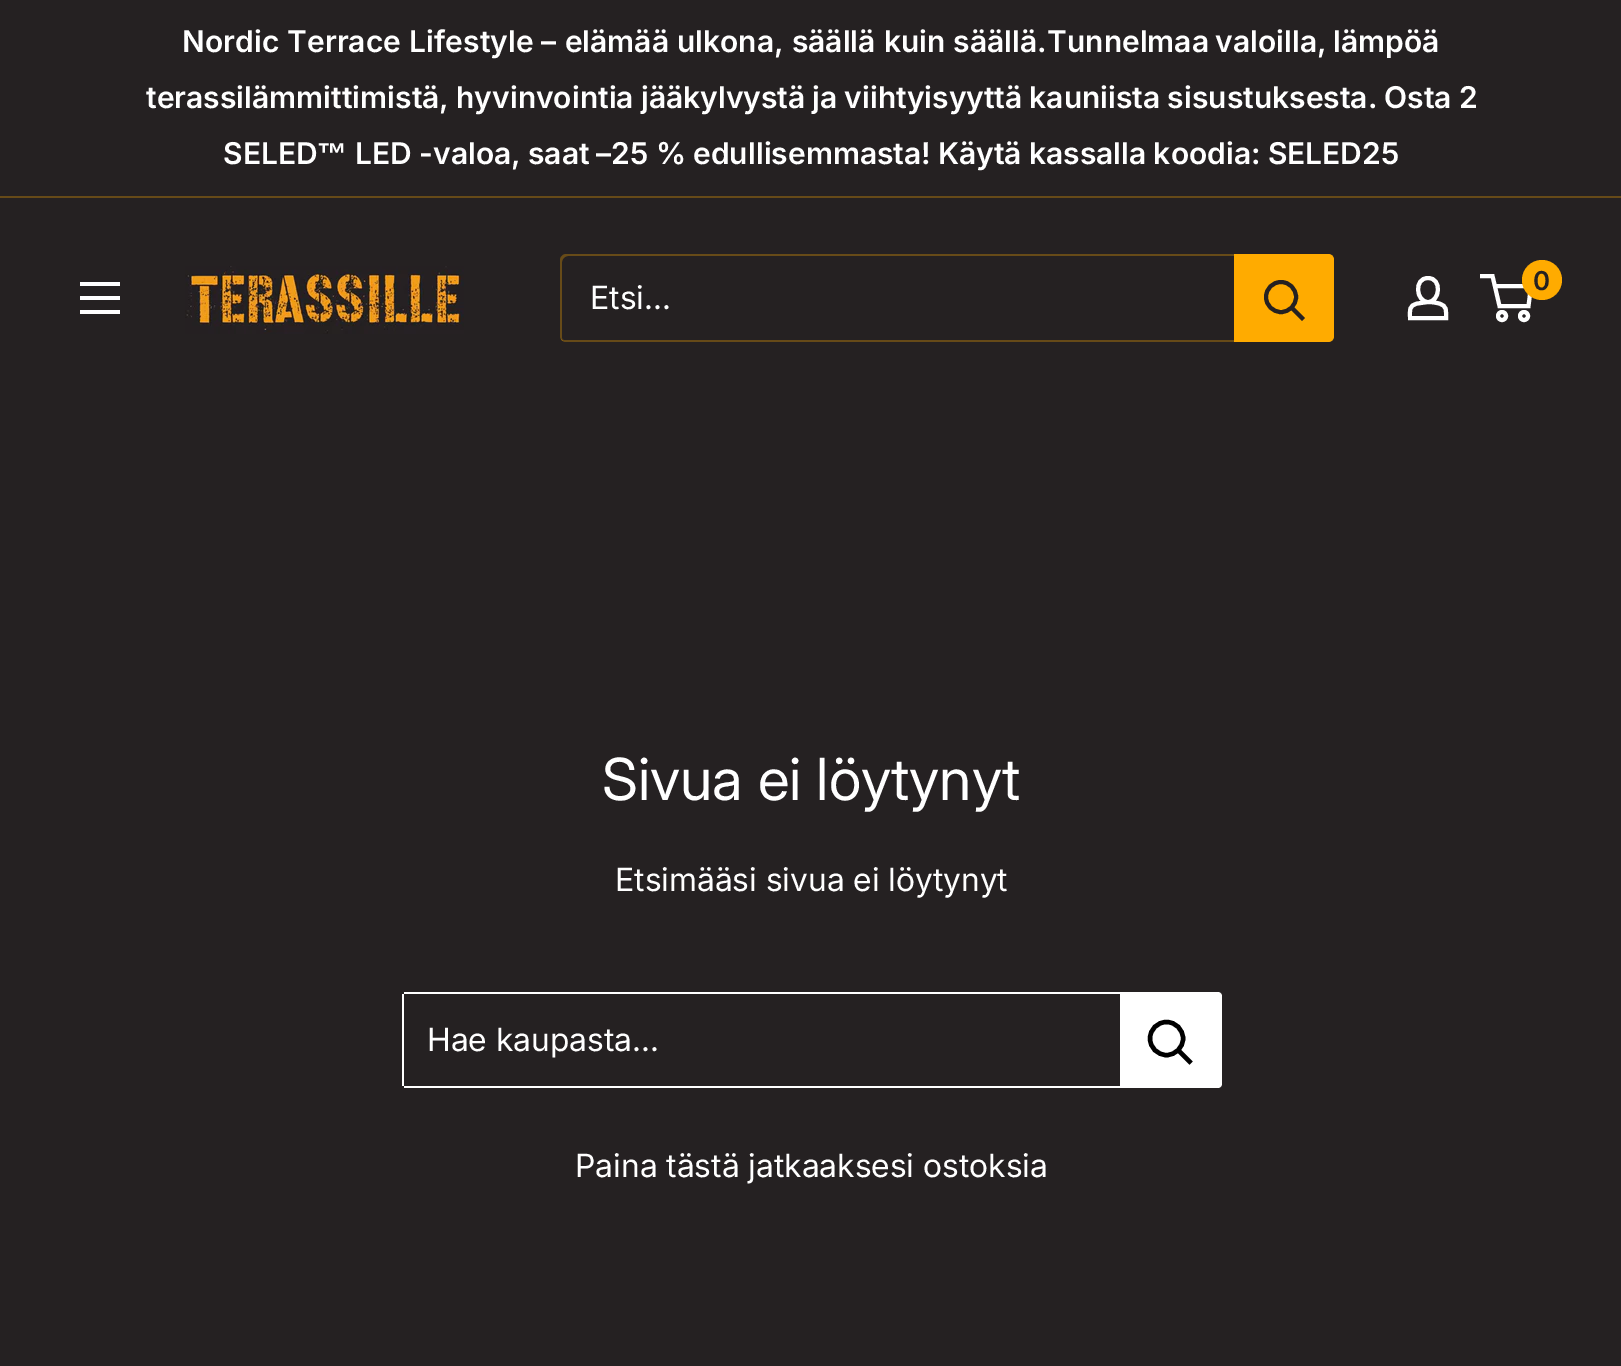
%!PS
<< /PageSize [1621 1366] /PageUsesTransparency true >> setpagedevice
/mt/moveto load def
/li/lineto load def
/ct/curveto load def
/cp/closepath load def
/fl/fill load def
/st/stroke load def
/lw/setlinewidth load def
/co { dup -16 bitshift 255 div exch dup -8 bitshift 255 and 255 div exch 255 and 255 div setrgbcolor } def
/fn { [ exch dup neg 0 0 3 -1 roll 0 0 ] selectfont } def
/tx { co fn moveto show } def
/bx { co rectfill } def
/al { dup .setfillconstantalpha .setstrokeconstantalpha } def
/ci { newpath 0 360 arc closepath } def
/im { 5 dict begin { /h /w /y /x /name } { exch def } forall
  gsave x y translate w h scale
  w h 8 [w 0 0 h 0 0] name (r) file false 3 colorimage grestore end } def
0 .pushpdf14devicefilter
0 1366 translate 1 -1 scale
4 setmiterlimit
0 0 1621 1366 16#252122 bx
0 196 1621 2 16#664A18 bx
16#FFFFFF co
80 310 mt 120 310 li 120 314 li 80 314 li cp 80 282 mt 120 282 li 120 286 li 80 286 li cp 80 296 mt 120 296 li 120 300 li 80 300 li cp eofill
(media/1.raw) 185 266 279 68 im
16#664A18 co
561 339 mt 562 341 564 342 566 342 ct 1328 342 li 1331 342 1334 339 1334 336 ct 1334 260 li 1334 258 1333 256 1331 255 ct 1332 256 1332 257 1332 258 ct 1332 334 li 1332 337 1329 340 1326 340 ct 564 340 li 563 340 562 340 561 339 ct cp fl
0.3 al
16#FFAB00 co
568 256 mt 1330 256 li 1333 257 li 1332 255 1330 254 1328 254 ct 566 254 li 563 254 560 257 560 260 ct 560 336 li 560 338 561 340 563 341 ct 562 340 562 339 562 338 ct 562 262 li 562 259 565 256 568 256 ct cp fl
1 al
1234 254 mt 1328 254 li 1331.5 254 1334 256.5 1334 260 ct 1334 336 li 1334 339.5 1331.5 342 1328 342 ct 1234 342 li cp fl
16#252122 co
4 lw
2 setlinecap
1302 318 mt 1292 308 li st
0 setlinecap
1281 297 15 ci st
16#FFFFFF co
1428 302 mt 1432 302 1435.5 302.5 1439 303.5 ct 1447.5 306 1446 310.5 1446 318 ct 1410 318 li 1410 310 1408.5 305.5 1417.5 303.5 ct cp 1428 302 mt 1416 302 1413.5 278 1428 278 ct 1442.5 278 1440 302 1428 302 ct cp st
1502 316 4 ci st
1524 316 4 ci st
1494.5 286 mt 1531 286 li 1528.5 306 li 1499.5 306 li 1492.5 276 li 1480 276 li st
16#FFAB00 co
1542 280 20 ci fl
404 992 716 2 16#FFFFFF bx
404 1086 716 2 16#FFFFFF bx
402 994 2 92 16#FFFFFF bx
1120 992 mt 1218 992 li 1220 992 1222 994 1222 996 ct 1222 1084 li 1222 1086 1220 1088 1218 1088 ct 1120 1088 li cp fl
16#000000 co
4.4 lw
2 setlinecap
1189.5 1061.5 mt 1178.5 1050.5 li st
0 setlinecap
1166.5 1038.5 16.5 ci st
/Inter-SemiBold 30 fn
16#FFFFFF co
182 52 mt .5 0 32 (Nordic Terrace Lifestyle – elämää ulkona, säällä kuin säällä.) widthshow
1047 52 mt -1 0 32 (Tunnelmaa valoilla, lämpöä) widthshow
146 108 mt -.5 0 32 (terassilämmittimistä, hyvinvointia jääkylvystä ja viihtyisyyttä kauniista sisustuksesta. Osta 2) widthshow
(SELED) 223 164 /Inter-SemiBold 30 16#FFFFFF tx
(™) 317 164 /LiberationSans-Bold 30 16#FFFFFF tx
/Inter-SemiBold 30 fn
355 164 mt -.4 0 32 (LED -valoa, saat –25 % edullisemmasta! Käytä kassalla koodia: SELED25) widthshow
(Etsi...) 590 309 /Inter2-Regular 32 16#FFFFFF tx
(0) 1533 290 /Inter-SemiBold 26 16#252122 tx
(Sivua ei löytynyt) 602 800 /Inter-Regular 58 16#FFFFFF tx
(Etsimääsi sivua ei löytynyt) 615 891 /Inter2-Regular 32 16#FFFFFF tx
(Hae kaupasta...) 427 1051 /Inter2-Regular 32 16#FFFFFF tx
(Paina tästä jatkaaksesi ostoksia) 575 1177 /Inter2-Regular 32 16#FFFFFF tx
.poppdf14devicefilter showpage
